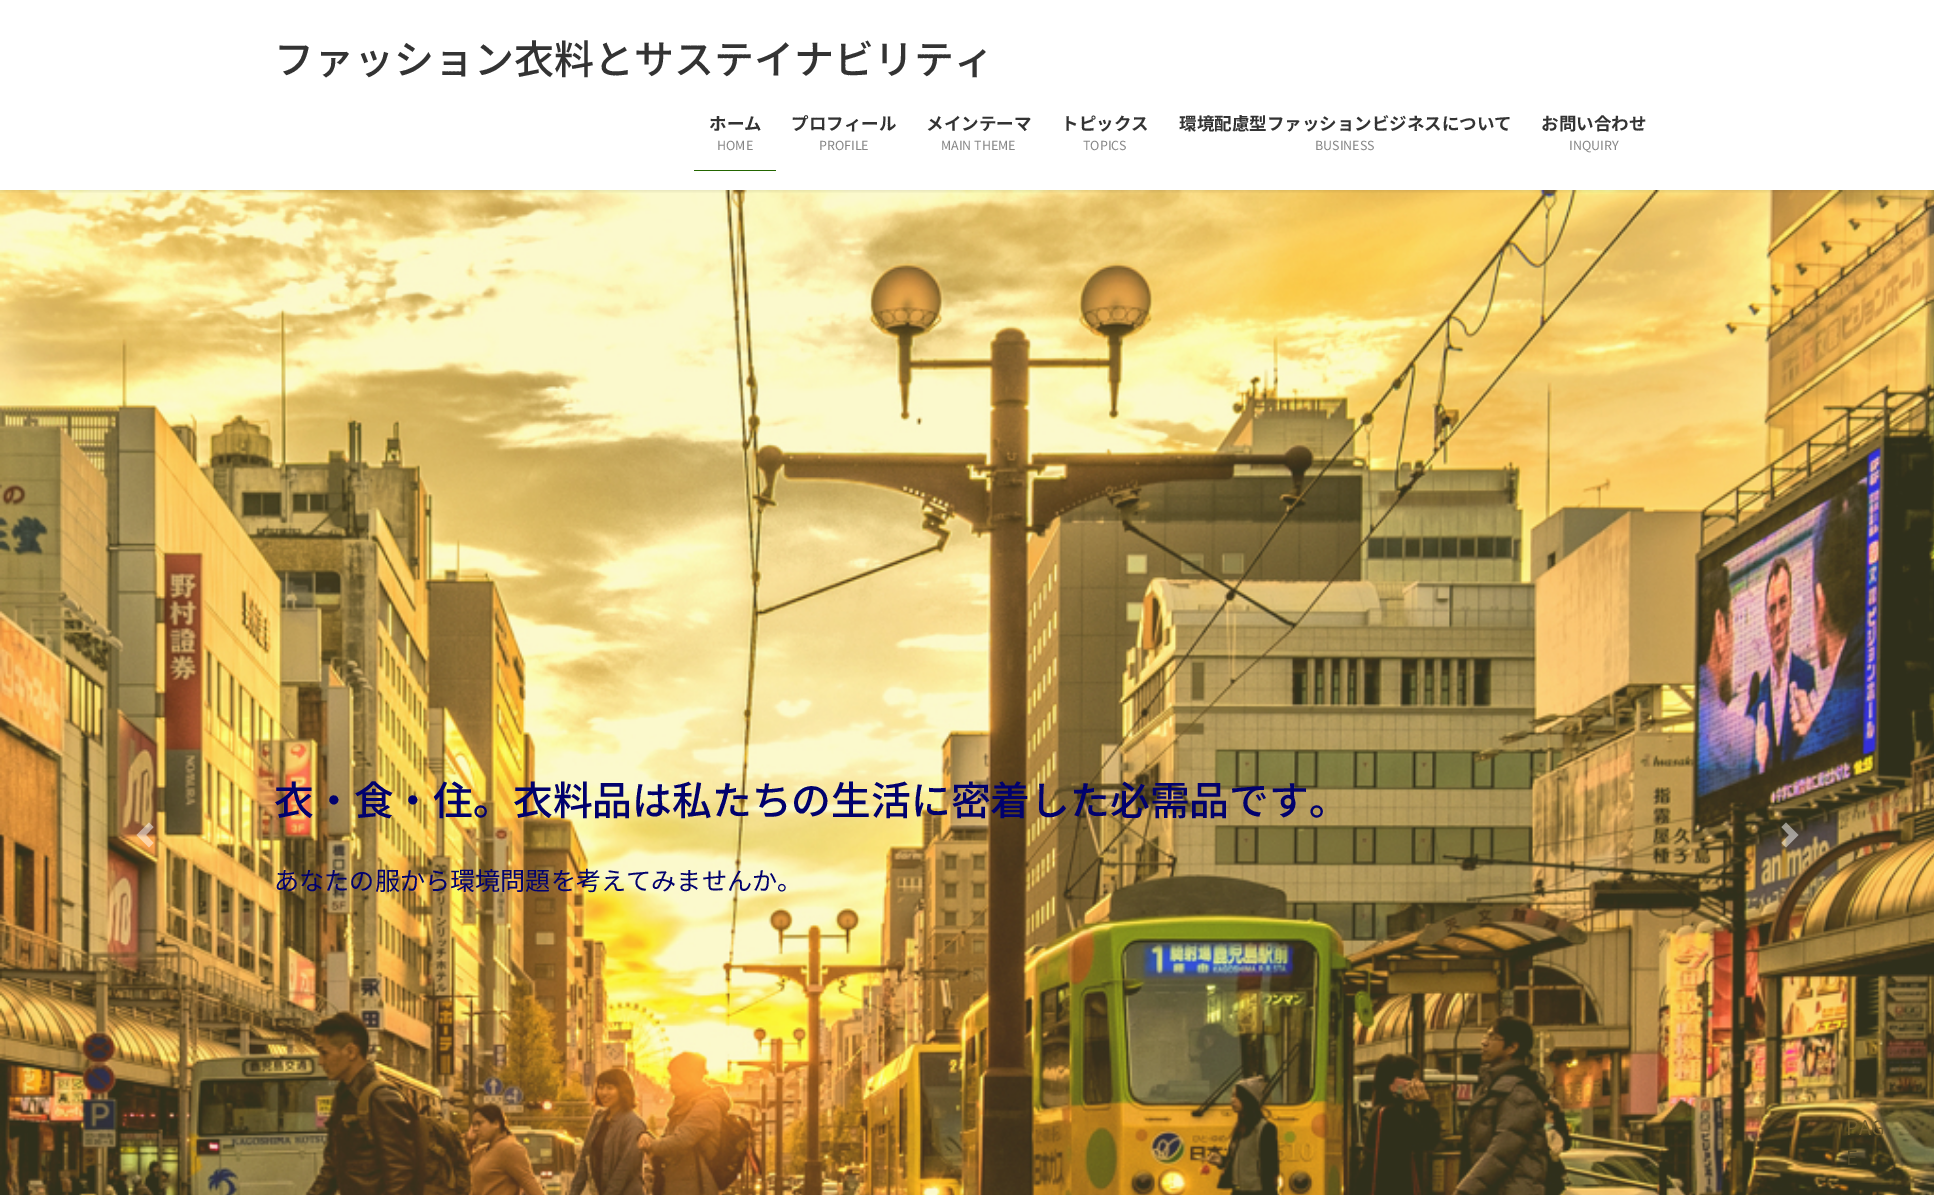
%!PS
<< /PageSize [1934 1195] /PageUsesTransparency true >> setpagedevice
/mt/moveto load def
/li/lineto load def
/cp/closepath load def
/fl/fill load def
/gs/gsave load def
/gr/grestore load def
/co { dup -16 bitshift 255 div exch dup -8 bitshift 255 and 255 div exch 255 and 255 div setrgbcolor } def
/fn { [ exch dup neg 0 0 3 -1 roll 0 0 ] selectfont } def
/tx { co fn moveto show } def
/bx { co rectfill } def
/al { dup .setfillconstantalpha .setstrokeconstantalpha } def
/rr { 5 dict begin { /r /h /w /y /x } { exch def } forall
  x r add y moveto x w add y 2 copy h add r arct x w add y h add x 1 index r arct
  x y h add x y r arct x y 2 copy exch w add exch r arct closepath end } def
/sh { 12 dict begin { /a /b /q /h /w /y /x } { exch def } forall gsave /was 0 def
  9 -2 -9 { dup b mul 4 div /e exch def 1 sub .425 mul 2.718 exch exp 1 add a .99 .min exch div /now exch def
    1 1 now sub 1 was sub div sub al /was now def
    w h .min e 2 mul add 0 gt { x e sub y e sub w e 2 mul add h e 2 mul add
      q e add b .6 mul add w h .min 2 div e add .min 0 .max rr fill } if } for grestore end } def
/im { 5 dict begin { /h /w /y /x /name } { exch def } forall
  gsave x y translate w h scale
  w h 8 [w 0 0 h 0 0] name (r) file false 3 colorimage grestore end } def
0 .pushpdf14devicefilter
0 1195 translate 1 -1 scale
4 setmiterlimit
0 0 1934 1195 16#FFFFFF bx
(media/1.raw) 0 190 1934 1005 im
gs
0 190 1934 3 rectclip
16#000000 co
0 1 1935 190 0 2 .1 sh
gr
694 170 82 1 16#236600 bx
0.5 al
16#FFFFFF co
149 822.5 mt 136.5 835 li 149 847.5 li 153.5 843 li 146 835 li 153.5 827 li cp fl
1786 822.5 mt 1781.5 827 li 1789 835 li 1781.5 843 li 1786 847.5 li 1798.5 835 li cp fl
1 al
(ファッション衣料とサステイナビリティ) 274 74 /NotoSansJP-Medium 40 16#333333 tx
(ホーム) 709 130 /NotoSansJP-Bold 17.5 16#333333 tx
(HOME) 717 150 /NotoSansJP-Regular 12.5 16#858585 tx
(プロフィール) 791 130 /NotoSansJP-Bold 17.5 16#333333 tx
(PROFILE) 819 150 /NotoSansJP-Regular 12.5 16#858585 tx
(メインテーマ) 926 130 /NotoSansJP-Bold 17.5 16#333333 tx
(MAIN THEME) 941 150 /NotoSansJP-Regular 12.5 16#858585 tx
(トピックス) 1061 130 /NotoSansJP-Bold 17.5 16#333333 tx
(TOPICS) 1083 150 /NotoSansJP-Regular 12.5 16#858585 tx
(環境配慮型ファッションビジネスについて) 1179 130 /NotoSansJP-Bold 17.5 16#333333 tx
(BUSINESS) 1315 150 /NotoSansJP-Regular 12.5 16#858585 tx
(お問い合わせ) 1541 130 /NotoSansJP-Bold 17.5 16#333333 tx
(INQUIRY) 1569 150 /NotoSansJP-Regular 12.5 16#858585 tx
(衣・食・住。衣料品は私たちの生活に密着した必需品です。) 274 815 /NotoSansJP-Medium 39.8 16#01016D tx
(あなたの服から環境問題を考えてみませんか。) 274 890 /NotoSansJP-Regular 25.15 16#01016D tx
(PAG) 1846 1135 /NotoSansJP-Regular 20 16#715D2D tx
(E) 1846 1165 /NotoSansJP-Regular 20 16#504829 tx
.poppdf14devicefilter showpage
